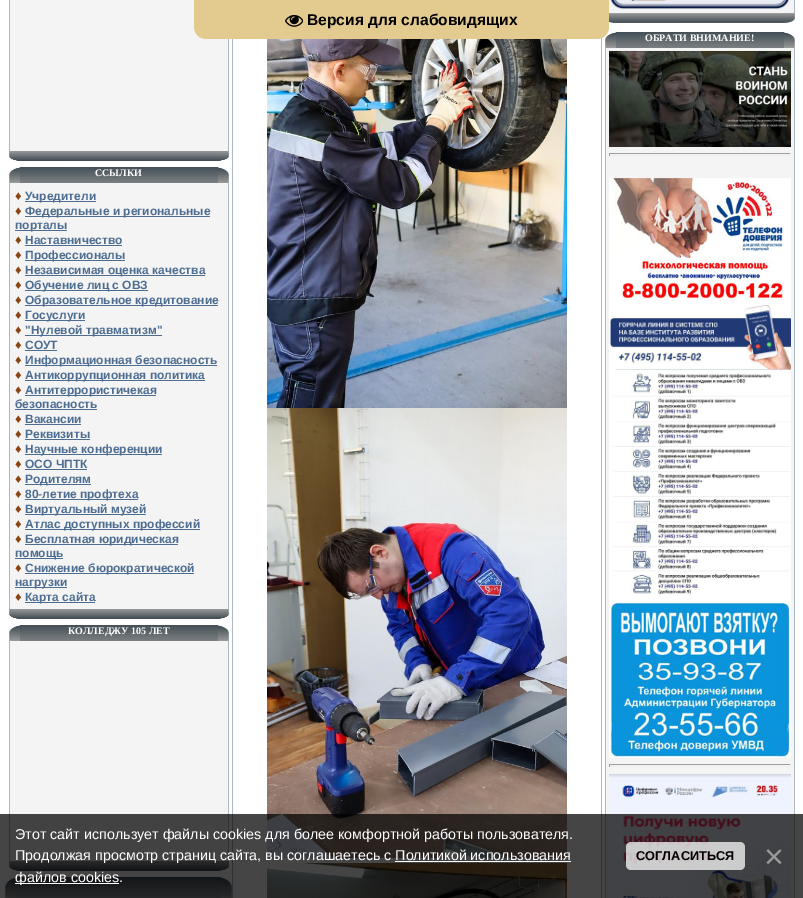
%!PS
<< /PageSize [803 898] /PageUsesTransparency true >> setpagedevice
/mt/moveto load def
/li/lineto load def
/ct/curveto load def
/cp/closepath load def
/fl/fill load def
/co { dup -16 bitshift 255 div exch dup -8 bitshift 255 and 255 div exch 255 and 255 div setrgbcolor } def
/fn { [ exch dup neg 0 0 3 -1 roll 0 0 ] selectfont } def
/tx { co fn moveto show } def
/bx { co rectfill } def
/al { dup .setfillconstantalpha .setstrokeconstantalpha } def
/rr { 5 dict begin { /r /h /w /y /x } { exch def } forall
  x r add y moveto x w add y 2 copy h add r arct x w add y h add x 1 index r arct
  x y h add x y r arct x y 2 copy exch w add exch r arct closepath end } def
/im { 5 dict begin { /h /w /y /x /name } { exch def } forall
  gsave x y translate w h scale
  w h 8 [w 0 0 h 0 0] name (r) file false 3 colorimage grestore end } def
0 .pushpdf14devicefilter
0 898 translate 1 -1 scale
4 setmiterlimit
0 0 803 898 16#FFFFFF bx
10 0 218 151 16#F4F4F4 bx
601 37 1 861 16#A9B8C2 bx
(media/15.raw) 605 32 11 16 im
16#E3CA8F co
194 0 mt 609 0 li 609 27 li 609 33.5 603.5 39 597 39 ct 206 39 li 199.5 39 194 33.5 194 27 ct cp fl
(media/1.raw) 285 14 18 13 im
228 39 1 112 16#A9B8C2 bx
9 0 1 151 16#A9B8C2 bx
(media/2.raw) 9 151 220 10 im
(media/3.raw) 20 167 198 16 im
(media/4.raw) 9 167 11 16 im
(media/5.raw) 218 167 11 16 im
10 183 218 426 16#F4F4F4 bx
228 183 1 426 16#A9B8C2 bx
9 183 1 426 16#A9B8C2 bx
25 201 71 1 16#4D6D91 bx
25 216 185 1 16#4D6D91 bx
15 230 52 1 16#4D6D91 bx
25 245 97 1 16#4D6D91 bx
25 260 100 1 16#4D6D91 bx
25 275 180 1 16#4D6D91 bx
25 290 123 1 16#4D6D91 bx
25 305 193 1 16#4D6D91 bx
25 320 60 1 16#4D6D91 bx
25 335 137 1 16#4D6D91 bx
25 350 32 1 16#4D6D91 bx
25 365 192 1 16#4D6D91 bx
25 380 180 1 16#4D6D91 bx
25 395 131 1 16#4D6D91 bx
15 409 82 1 16#4D6D91 bx
25 424 56 1 16#4D6D91 bx
25 439 65 1 16#4D6D91 bx
25 454 137 1 16#4D6D91 bx
25 469 62 1 16#4D6D91 bx
25 484 66 1 16#4D6D91 bx
25 499 113 1 16#4D6D91 bx
25 514 121 1 16#4D6D91 bx
25 529 175 1 16#4D6D91 bx
25 544 153 1 16#4D6D91 bx
15 558 48 1 16#4D6D91 bx
25 573 169 1 16#4D6D91 bx
15 587 52 1 16#4D6D91 bx
25 602 70 1 16#4D6D91 bx
(media/2.raw) 9 609 220 10 im
(media/3.raw) 20 625 198 16 im
(media/4.raw) 9 625 11 16 im
(media/5.raw) 218 625 11 16 im
10 641 218 220 16#F4F4F4 bx
228 641 1 220 16#A9B8C2 bx
9 641 1 220 16#A9B8C2 bx
(media/2.raw) 9 861 220 10 im
(media/6.raw) 16 877 205 21 im
(media/7.raw) 5 877 11 21 im
(media/8.raw) 221 877 11 21 im
232 39 1 859 16#A9B8C2 bx
(media/9.raw) 267 39 300 369 im
(media/10.raw) 267 408 300 450 im
(media/11.raw) 267 863 300 35 im
609 0 185 13 16#F4F4F4 bx
794 0 1 13 16#A9B8C2 bx
(media/12.raw) 610 0 179 9 im
(media/13.raw) 609 13 186 10 im
(media/14.raw) 616 32 168 16 im
(media/5.raw) 784 32 11 16 im
606 48 188 850 16#F4F4F4 bx
794 48 1 850 16#A9B8C2 bx
605 48 1 850 16#A9B8C2 bx
(media/16.raw) 609 51 182 96 im
609 153 182 1 16#9F9F9F bx
790 153 1 3 16#EEEEEE bx
609 155 182 1 16#EEEEEE bx
609 153 1 3 16#9F9F9F bx
(media/17.raw) 609 178 182 126 im
(media/18.raw) 609 304 182 297 im
(media/19.raw) 609 601 182 157 im
609 764 182 1 16#9F9F9F bx
790 764 1 3 16#EEEEEE bx
609 766 182 1 16#EEEEEE bx
609 764 1 3 16#9F9F9F bx
(media/20.raw) 609 774 182 124 im
0.73 al
0 814 803 84 16#000000 bx
1 al
395 861 176 1 16#FFFFFF bx
15 883 104 1 16#FFFFFF bx
0.73 al
626 842 119 28 5 rr fl
1 al
(Версия для слабовидящих) 307 25 /LiberationSans-Bold 15.6 16#000000 tx
(ССЫЛКИ) 95 176 /LiberationSerif-Bold 10 16#FFFFFF tx
(♦) 15 200 /LiberationSans-Bold 13 16#8B4513 tx
(Учредители) 25 200 /LiberationSans-Bold 12 16#4D6D91 tx
(♦) 15 215 /LiberationSans-Bold 13 16#8B4513 tx
(Федеральные и региональные) 25 215 /LiberationSans-Bold 12 16#4D6D91 tx
(порталы) 15 229 /LiberationSans-Bold 12 16#4D6D91 tx
(♦) 15 244 /LiberationSans-Bold 13 16#8B4513 tx
(Наставничество) 25 244 /LiberationSans-Bold 12 16#4D6D91 tx
(♦) 15 259 /LiberationSans-Bold 13 16#8B4513 tx
(Профессионалы) 25 259 /LiberationSans-Bold 12 16#4D6D91 tx
(♦) 15 274 /LiberationSans-Bold 13 16#8B4513 tx
(Независимая оценка качества) 25 274 /LiberationSans-Bold 12 16#4D6D91 tx
(♦) 15 289 /LiberationSans-Bold 13 16#8B4513 tx
(Обучение лиц с ОВЗ) 25 289 /LiberationSans-Bold 12 16#4D6D91 tx
(♦) 15 304 /LiberationSans-Bold 13 16#8B4513 tx
(Образовательное кредитование) 25 304 /LiberationSans-Bold 12 16#4D6D91 tx
(♦) 15 319 /LiberationSans-Bold 13 16#8B4513 tx
(Госуслуги) 25 319 /LiberationSans-Bold 12 16#4D6D91 tx
(♦) 15 334 /LiberationSans-Bold 13 16#8B4513 tx
("Нулевой травматизм") 25 334 /LiberationSans-Bold 12 16#4D6D91 tx
(♦) 15 349 /LiberationSans-Bold 13 16#8B4513 tx
(СОУТ) 25 349 /LiberationSans-Bold 12 16#4D6D91 tx
(♦) 15 364 /LiberationSans-Bold 13 16#8B4513 tx
(Информационная безопасность) 25 364 /LiberationSans-Bold 12 16#4D6D91 tx
(♦) 15 379 /LiberationSans-Bold 13 16#8B4513 tx
(Антикоррупционная политика) 25 379 /LiberationSans-Bold 12 16#4D6D91 tx
(♦) 15 394 /LiberationSans-Bold 13 16#8B4513 tx
(Антитеррористичекая) 25 394 /LiberationSans-Bold 12 16#4D6D91 tx
(безопасность) 15 408 /LiberationSans-Bold 12 16#4D6D91 tx
(♦) 15 423 /LiberationSans-Bold 13 16#8B4513 tx
(Вакансии) 25 423 /LiberationSans-Bold 12 16#4D6D91 tx
(♦) 15 438 /LiberationSans-Bold 13 16#8B4513 tx
(Реквизиты) 25 438 /LiberationSans-Bold 12 16#4D6D91 tx
(♦) 15 453 /LiberationSans-Bold 13 16#8B4513 tx
(Научные конференции) 25 453 /LiberationSans-Bold 12 16#4D6D91 tx
(♦) 15 468 /LiberationSans-Bold 13 16#8B4513 tx
(ОСО ЧПТК) 25 468 /LiberationSans-Bold 12 16#4D6D91 tx
(♦) 15 483 /LiberationSans-Bold 13 16#8B4513 tx
(Родителям) 25 483 /LiberationSans-Bold 12 16#4D6D91 tx
(♦) 15 498 /LiberationSans-Bold 13 16#8B4513 tx
(80-летие профтеха) 25 498 /LiberationSans-Bold 12 16#4D6D91 tx
(♦) 15 513 /LiberationSans-Bold 13 16#8B4513 tx
(Виртуальный музей) 25 513 /LiberationSans-Bold 12 16#4D6D91 tx
(♦) 15 528 /LiberationSans-Bold 13 16#8B4513 tx
(Атлас доступных профессий) 25 528 /LiberationSans-Bold 12 16#4D6D91 tx
(♦) 15 543 /LiberationSans-Bold 13 16#8B4513 tx
(Бесплатная юридическая) 25 543 /LiberationSans-Bold 12 16#4D6D91 tx
(помощь) 15 557 /LiberationSans-Bold 12 16#4D6D91 tx
(♦) 15 572 /LiberationSans-Bold 13 16#8B4513 tx
(Снижение бюрократической) 25 572 /LiberationSans-Bold 12 16#4D6D91 tx
(нагрузки) 15 586 /LiberationSans-Bold 12 16#4D6D91 tx
(♦) 15 601 /LiberationSans-Bold 13 16#8B4513 tx
(Карта сайта) 25 601 /LiberationSans-Bold 12 16#4D6D91 tx
(КОЛЛЕДЖУ 105 ЛЕТ) 68 634 /LiberationSerif-Bold 10 16#FFFFFF tx
(ОБРАТИ ВНИМАНИЕ!) 645 41 /LiberationSerif-Bold 10 16#FFFFFF tx
(Этот сайт использует файлы cookies для более комфортной работы пользователя.) 15 839 /LiberationSans-Regular 14.3 16#FFFFFF tx
(Продолжая просмотр страниц сайта, вы соглашаетесь с Политикой использования) 15 860 /LiberationSans-Regular 14.3 16#FFFFFF tx
(файлов cookies.) 15 882 /LiberationSans-Regular 14.3 16#FFFFFF tx
(СОГЛАСИТЬСЯ) 636 860 /LiberationSans-Bold 12.75 16#000000 tx
(×) 764 868 /LiberationSans-Regular 34 16#999999 tx
.poppdf14devicefilter showpage
